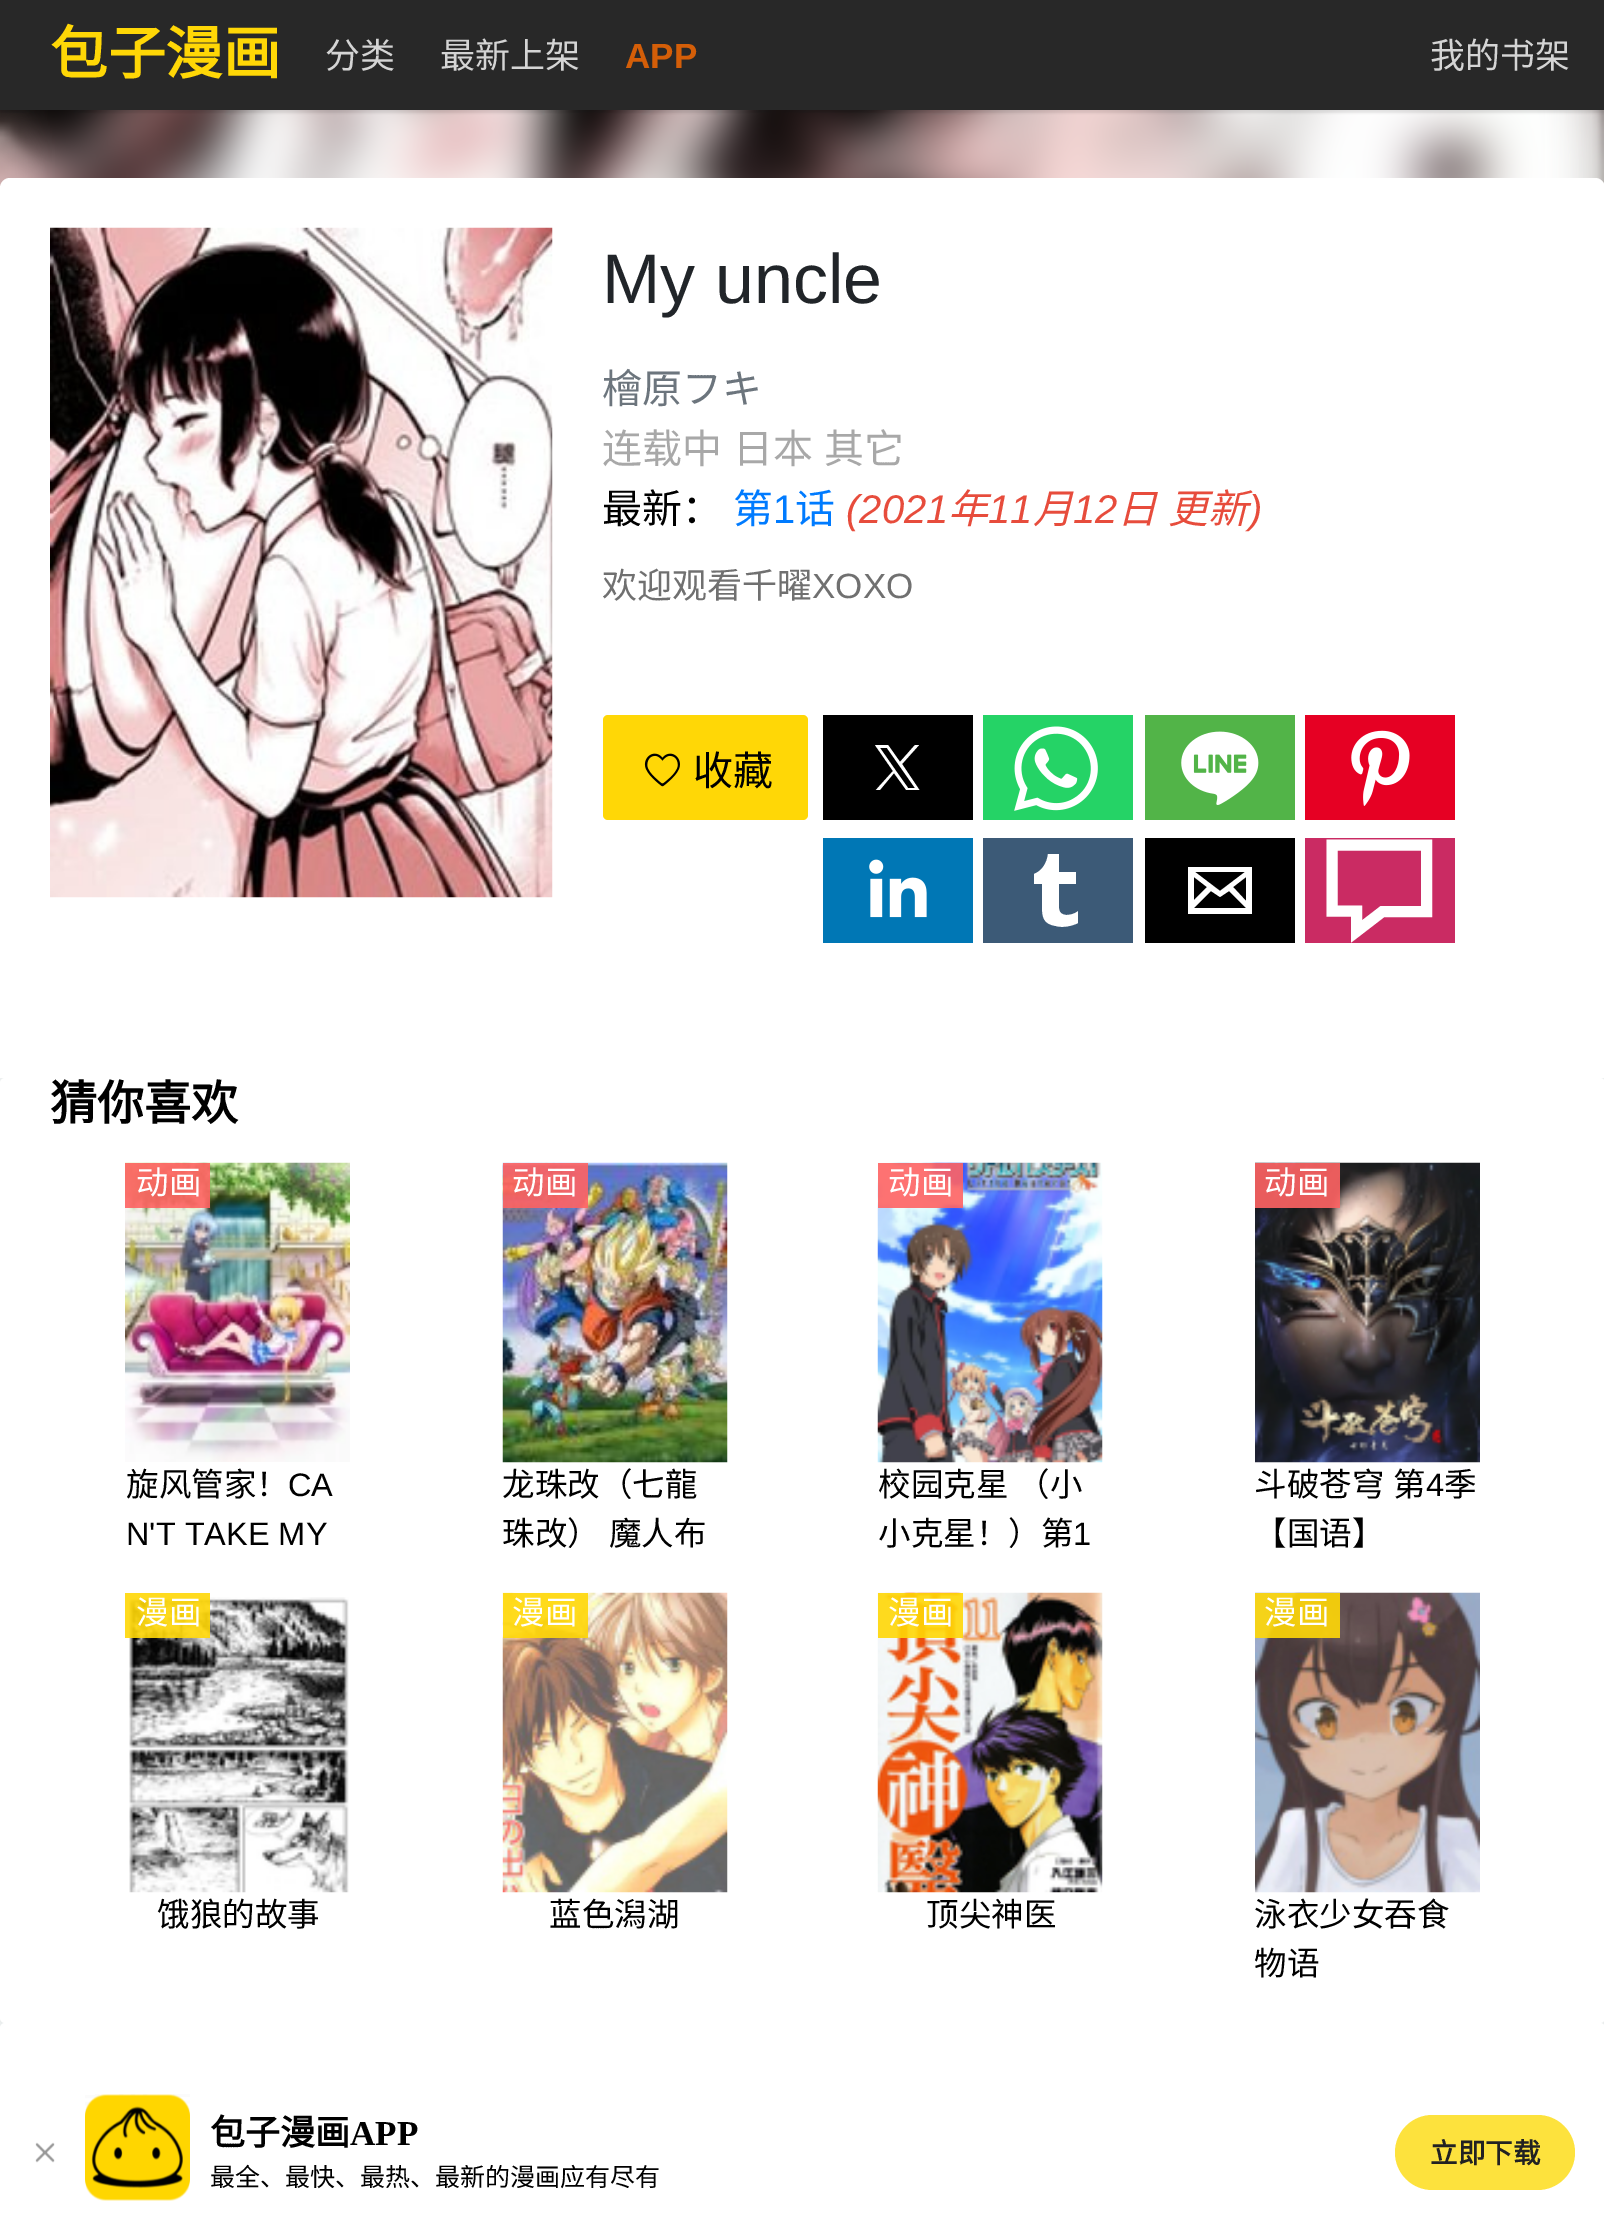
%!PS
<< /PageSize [1604 2231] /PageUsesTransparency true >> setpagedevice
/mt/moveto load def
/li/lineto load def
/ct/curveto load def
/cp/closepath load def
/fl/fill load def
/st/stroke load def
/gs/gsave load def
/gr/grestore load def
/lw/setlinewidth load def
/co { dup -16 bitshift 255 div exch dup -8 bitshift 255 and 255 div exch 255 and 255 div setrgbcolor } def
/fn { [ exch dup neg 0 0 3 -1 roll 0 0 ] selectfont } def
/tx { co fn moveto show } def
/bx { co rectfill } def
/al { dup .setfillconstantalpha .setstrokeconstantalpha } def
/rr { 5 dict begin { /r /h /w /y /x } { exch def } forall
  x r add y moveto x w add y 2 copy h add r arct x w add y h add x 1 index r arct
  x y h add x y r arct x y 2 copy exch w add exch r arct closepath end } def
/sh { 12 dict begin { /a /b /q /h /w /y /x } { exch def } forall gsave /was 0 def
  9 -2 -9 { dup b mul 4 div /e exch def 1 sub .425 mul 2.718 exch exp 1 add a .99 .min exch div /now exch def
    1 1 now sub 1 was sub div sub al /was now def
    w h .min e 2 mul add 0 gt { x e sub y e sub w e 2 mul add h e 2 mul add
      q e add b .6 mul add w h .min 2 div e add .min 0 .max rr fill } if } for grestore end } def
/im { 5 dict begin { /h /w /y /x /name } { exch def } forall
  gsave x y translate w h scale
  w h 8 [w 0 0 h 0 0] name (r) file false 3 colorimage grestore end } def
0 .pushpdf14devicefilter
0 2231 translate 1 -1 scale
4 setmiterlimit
0 0 1604 2231 16#F1F1F1 bx
(media/1.raw) 0 110 1604 78 im
(media/2.raw) 0 110 1604 78 im
16#000000 co
0 3 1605 110 0 1 .1 sh
0 0 1604 110 16#282828 bx
16#6A7385 co
0 1080 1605 945 5 4 .08 sh
16#FFFFFF co
10 178 mt 1595 178 li 1600.5 178 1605 182.5 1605 188 ct 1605 1078 li 0 1078 li 0 188 li 0 182.5 4.5 178 10 178 ct cp fl
(media/3.raw) 50 227 503 671 im
16#FFD706 co
603 715 205 105 5 rr fl
(media/4.raw) 644 753 36 34 im
823 715 150 105 16#000000 bx
gs
875 745 45 45 rectclip
16#FFFFFF co
902 764 mt 919 745 li 915 745 li 900 762 li 888 745 li 875 745 li 893 771 li 875 791 li 879 791 li 894 773 li 907 791 li 920 791 li cp 896 771 mt 880 748 li 887 748 li 915 788 li 908 788 li cp fl
gr
983 715 150 105 16#25D366 bx
(media/5.raw) 1014 726 84 85 im
1145 715 150 105 16#52B448 bx
(media/6.raw) 1181 731 78 74 im
1305 715 150 105 16#E60023 bx
(media/7.raw) 1351 730 59 76 im
823 838 150 105 16#0077B5 bx
(media/8.raw) 869 859 58 59 im
983 838 150 105 16#3C5A77 bx
16#FFFFFF co
1048 854 mt 1047 863 1042 871 1034 874 ct 1034 884 li 1042 884 li 1042 905 li 1042 917 1043 924 1056 926 ct 1063 928 1072 926 1078 923 ct 1078 911 li 1075 914 1070 915 1066 915 ct 1057 914 1059 907 1059 899 ct 1059 884 li 1076 884 li 1076 872 li 1059 872 li 1059 854 li cp fl
1145 838 150 105 16#000000 bx
16#FFFFFF co
1188 867 mt 1188 914 li 1252 914 li 1252 867 li cp 1245 872 mt 1220 891 li 1195 872 li cp 1194 877 mt 1207 887 li 1194 900 li cp 1194 908 mt 1211 891 li 1220 897 li 1229 891 li 1246 908 li cp 1246 901 mt 1233 887 li 1246 877 li cp fl
1305 838 150 105 16#CA2B63 bx
16#FFFFFF co
10.9 lw
1356.5 931.5 mt 1356.5 911 li 1332 911 li 1332 845 li 1426.5 845 li 1426.5 911.5 li 1382.5 911.5 li cp st
0 1078 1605 945 5 rr fl
(media/9.raw) 125 1162 225 300 im
0.9 al
125 1163 85 45 16#FF6363 bx
1 al
(media/10.raw) 502 1162 226 301 im
0.9 al
503 1163 85 45 16#FF6363 bx
1 al
(media/11.raw) 877 1162 226 301 im
0.9 al
878 1163 85 45 16#FF6363 bx
1 al
(media/12.raw) 1255 1162 225 301 im
0.9 al
1255 1163 85 45 16#FF6363 bx
1 al
(media/13.raw) 129 1597 220 296 im
0.9 al
125 1593 85 45 16#FFD706 bx
1 al
(media/14.raw) 502 1592 226 301 im
0.9 al
503 1593 85 45 16#FFD706 bx
1 al
(media/15.raw) 877 1592 226 301 im
0.9 al
878 1593 85 45 16#FFD706 bx
1 al
(media/16.raw) 1255 1592 225 301 im
0.9 al
1255 1593 85 45 16#FFD706 bx
1 al
16#FFFFFF co
0 2023 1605 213 5 rr fl
(media/17.raw) 35 2142 20 21 im
(media/18.raw) 85 2094 105 107 im
16#FDE23D co
1395 2115 180 75 37.5 rr fl
(包子漫画) 50 74 /NotoSansCJKSC-Bold 57.5 16#FFD706 tx
(分类) 325 68 /NotoSansCJKSC-Regular 35 16#D4D4D4 tx
(最新上架) 440 68 /NotoSansCJKSC-Regular 35 16#D4D4D4 tx
(APP) 625 68 /LiberationSans-Bold 35 16#D45E08 tx
(我的书架) 1430 68 /NotoSansCJKSC-Regular 35 16#D4D4D4 tx
(My uncle) 602 303 /LiberationSans-Regular 70 16#212529 tx
(檜原フキ) 602 403 /NotoSansCJKSC-Regular 40 16#6C757D tx
(连载中) 602 463 /NotoSansCJKSC-Regular 40 16#A8A8A8 tx
(日本) 733 463 /NotoSansCJKSC-Regular 40 16#A8A8A8 tx
(其它) 824 463 /NotoSansCJKSC-Regular 40 16#A8A8A8 tx
(最新：) 602 523 /NotoSansCJKSC-Regular 40 16#000000 tx
(第) 733 523 /NotoSansCJKSC-Regular 40 16#007BFF tx
(话) 795 523 /NotoSansCJKSC-Regular 40 16#007BFF tx
(\(2021) 846 523 /LiberationSans-Italic 40 16#E74C3C tx
(年) 948 523 /NotoSansCJKSC-Italic 40 16#E74C3C tx
(月) 1033 523 /NotoSansCJKSC-Italic 40 16#E74C3C tx
1117 523 mt 2 0 32 (日 更新) widthshow
(1) 773 523 /LiberationSans-Regular 40 16#007BFF tx
(11) 988 523 /LiberationSans-Italic 40 16#E74C3C tx
(12) 1073 523 /LiberationSans-Italic 40 16#E74C3C tx
(\)) 1249 523 /LiberationSans-Italic 40 16#E74C3C tx
(欢迎观看千曜) 602 598 /NotoSansCJKSC-Regular 35 16#707070 tx
(XOXO) 812 598 /LiberationSans-Regular 35 16#707070 tx
(收藏) 693 785 /NotoSansCJKSC-Regular 40 16#000000 tx
(猜你喜欢) 50 1120 /NotoSansCJKSC-Bold 47 16#000000 tx
(动画) 136 1194 /NotoSansCJKSC-Regular 32.5 16#FFFFFF tx
(旋风管家！) 126 1496 /NotoSansCJKSC-Regular 32.5 16#000000 tx
(CA) 288 1496 /LiberationSans-Regular 32.5 16#000000 tx
(N'T TAKE MY) 126 1545 /LiberationSans-Regular 32.5 16#000000 tx
(动画) 512 1194 /NotoSansCJKSC-Regular 32.5 16#FFFFFF tx
(龙珠改（七龍) 502 1496 /NotoSansCJKSC-Regular 32.5 16#000000 tx
502 1545 mt 2 0 32 (珠改） 魔人布) widthshow
(动画) 888 1194 /NotoSansCJKSC-Regular 32.5 16#FFFFFF tx
16#000000 co
878 1496 mt 2 0 32 (校园克星 （小) widthshow
(小克星！）第) 878 1545 /NotoSansCJKSC-Regular 32.5 16#000000 tx
(1) 1073 1545 /LiberationSans-Regular 32.5 16#000000 tx
(动画) 1264 1194 /NotoSansCJKSC-Regular 32.5 16#FFFFFF tx
16#000000 co
1254 1496 mt 2 0 32 (斗破苍穹 第) widthshow
(4) 1426 1496 /LiberationSans-Regular 32.5 16#000000 tx
(季) 1444 1496 /NotoSansCJKSC-Regular 32.5 16#000000 tx
(【国语】) 1254 1545 /NotoSansCJKSC-Regular 32.5 16#000000 tx
(漫画) 136 1624 /NotoSansCJKSC-Regular 32.5 16#FFFFFF tx
(饿狼的故事) 157 1926 /NotoSansCJKSC-Regular 32.5 16#000000 tx
(漫画) 512 1624 /NotoSansCJKSC-Regular 32.5 16#FFFFFF tx
(蓝色潟湖) 549 1926 /NotoSansCJKSC-Regular 32.5 16#000000 tx
(漫画) 888 1624 /NotoSansCJKSC-Regular 32.5 16#FFFFFF tx
(顶尖神医) 926 1926 /NotoSansCJKSC-Regular 32.5 16#000000 tx
(漫画) 1264 1624 /NotoSansCJKSC-Regular 32.5 16#FFFFFF tx
(泳衣少女吞食) 1254 1926 /NotoSansCJKSC-Regular 32.5 16#000000 tx
(物语) 1254 1975 /NotoSansCJKSC-Regular 32.5 16#000000 tx
(包子漫画) 210 2145 /NotoSansCJKSC-Bold 35 16#000000 tx
(APP) 350 2145 /LiberationSerif-Bold 35 16#000000 tx
(最全、最快、最热、最新的漫画应有尽有) 210 2186 /NotoSansCJKSC-Regular 25 16#000000 tx
(立即下载) 1430 2163 /NotoSansCJKSC-Bold 27.5 16#222222 tx
.poppdf14devicefilter showpage
